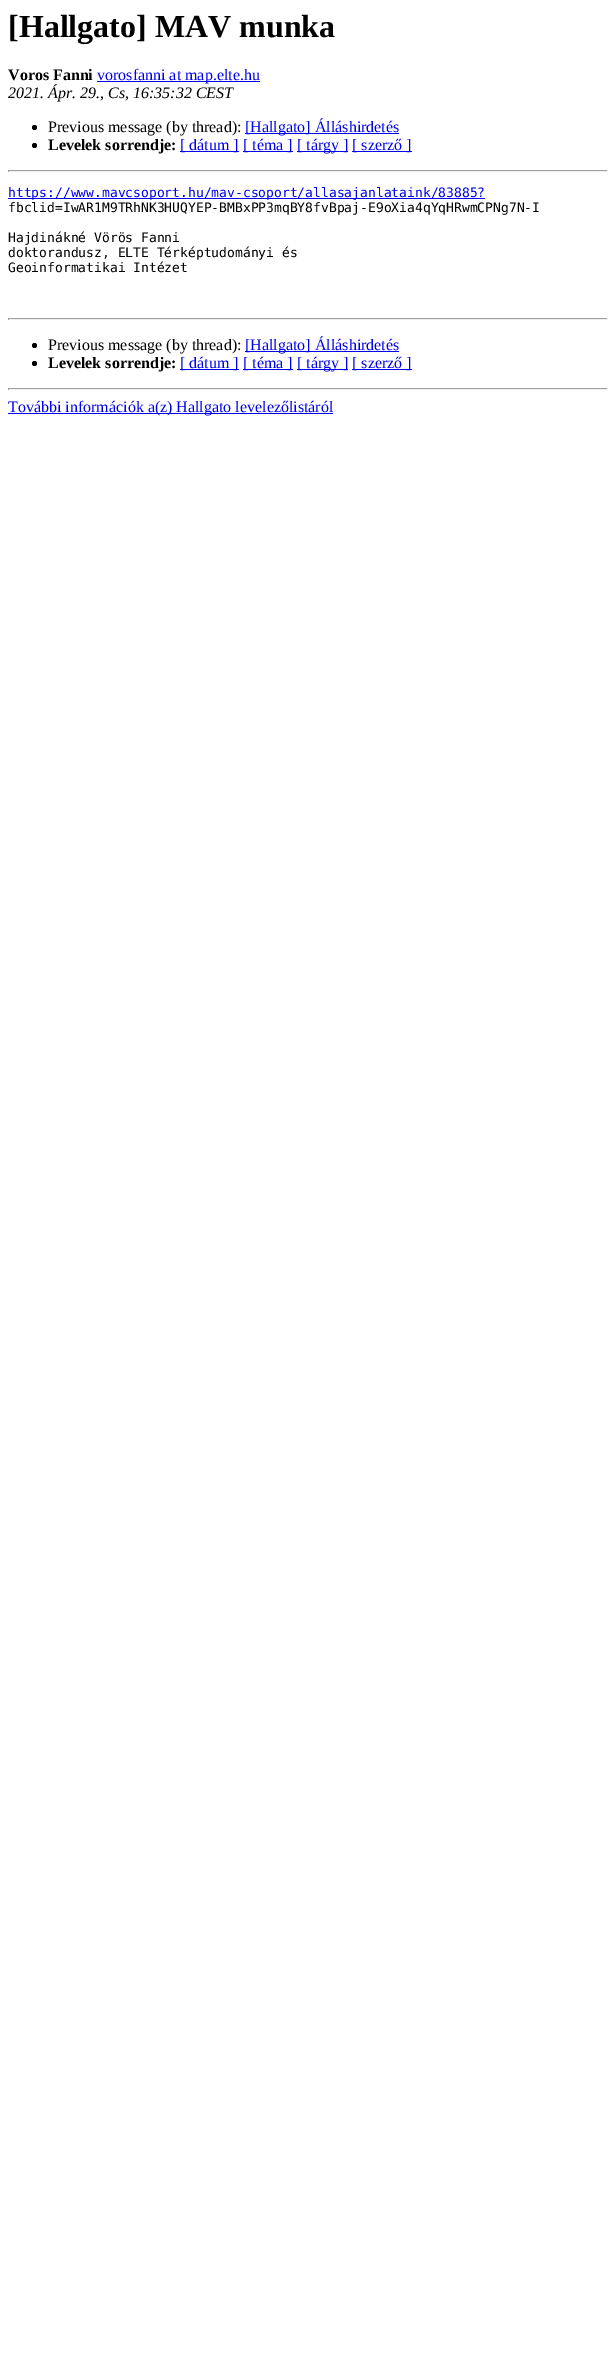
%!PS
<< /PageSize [616 2361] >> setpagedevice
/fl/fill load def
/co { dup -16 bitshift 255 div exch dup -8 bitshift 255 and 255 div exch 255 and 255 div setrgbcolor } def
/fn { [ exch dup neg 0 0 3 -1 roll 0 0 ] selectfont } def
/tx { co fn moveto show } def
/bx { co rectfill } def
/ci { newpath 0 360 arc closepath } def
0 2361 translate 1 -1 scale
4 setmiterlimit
0 0 616 2361 16#FFFFFF bx
97 81 163 1 16#0000EE bx
16#000000 co
34.5 127.5 2.5 ci fl
245 133 154 1 16#0000EE bx
16#000000 co
34.5 145.5 2.5 ci fl
180 151 59 1 16#0000EE bx
243 151 50 1 16#0000EE bx
297 151 51 1 16#0000EE bx
352 151 60 1 16#0000EE bx
8 170 600 1 16#9F9F9F bx
607 170 1 2 16#EEEEEE bx
8 171 600 1 16#EEEEEE bx
8 170 1 2 16#9F9F9F bx
8 198 477 1 16#0000EE bx
8 318 600 1 16#9F9F9F bx
607 318 1 2 16#EEEEEE bx
8 319 600 1 16#EEEEEE bx
8 318 1 2 16#9F9F9F bx
16#000000 co
34.5 345.5 2.5 ci fl
245 351 154 1 16#0000EE bx
16#000000 co
34.5 363.5 2.5 ci fl
180 369 59 1 16#0000EE bx
243 369 50 1 16#0000EE bx
297 369 51 1 16#0000EE bx
352 369 60 1 16#0000EE bx
8 388 600 1 16#9F9F9F bx
607 388 1 2 16#EEEEEE bx
8 389 600 1 16#EEEEEE bx
8 388 1 2 16#9F9F9F bx
8 413 325 1 16#0000EE bx
([Hallgato] MAV munka) 8 37 /LiberationSerif-Bold 32 16#000000 tx
(Voros Fanni) 8 80 /LiberationSerif-Bold 16 16#000000 tx
(vorosfanni at map.elte.hu) 97 80 /LiberationSerif-Regular 16 16#0000EE tx
(2021. Ápr. 29., Cs, 16:35:32 CEST) 8 98 /LiberationSerif-Italic 16 16#000000 tx
(Previous message \(by thread\):) 48 132 /LiberationSerif-Regular 16 16#000000 tx
([Hallgato] Álláshirdetés) 245 132 /LiberationSerif-Regular 16 16#0000EE tx
(Levelek sorrendje:) 48 150 /LiberationSerif-Bold 16 16#000000 tx
([ dátum ]) 180 150 /LiberationSerif-Regular 16 16#0000EE tx
([ téma ]) 243 150 /LiberationSerif-Regular 16 16#0000EE tx
([ tárgy ]) 297 150 /LiberationSerif-Regular 16 16#0000EE tx
([ szerző ]) 352 150 /LiberationSerif-Regular 16 16#0000EE tx
(https://www.mavcsoport.hu/mav-csoport/allasajanlataink/83885?) 8 197 /DejaVuSansMono-Regular 13 16#0000EE tx
(fbclid=IwAR1M9TRhNK3HUQYEP-BMBxPP3mqBY8fvBpaj-E9oXia4qYqHRwmCPNg7N-I) 8 212 /DejaVuSansMono-Regular 13 16#000000 tx
(Hajdinákné Vörös Fanni) 8 242 /DejaVuSansMono-Regular 13 16#000000 tx
(doktorandusz, ELTE Térképtudományi és) 8 257 /DejaVuSansMono-Regular 13 16#000000 tx
(Geoinformatikai Intézet) 8 272 /DejaVuSansMono-Regular 13 16#000000 tx
(Previous message \(by thread\):) 48 350 /LiberationSerif-Regular 16 16#000000 tx
([Hallgato] Álláshirdetés) 245 350 /LiberationSerif-Regular 16 16#0000EE tx
(Levelek sorrendje:) 48 368 /LiberationSerif-Bold 16 16#000000 tx
([ dátum ]) 180 368 /LiberationSerif-Regular 16 16#0000EE tx
([ téma ]) 243 368 /LiberationSerif-Regular 16 16#0000EE tx
([ tárgy ]) 297 368 /LiberationSerif-Regular 16 16#0000EE tx
([ szerző ]) 352 368 /LiberationSerif-Regular 16 16#0000EE tx
(További információk a\(z\) Hallgato levelezőlistáról) 8 412 /LiberationSerif-Regular 16 16#0000EE tx
showpage
